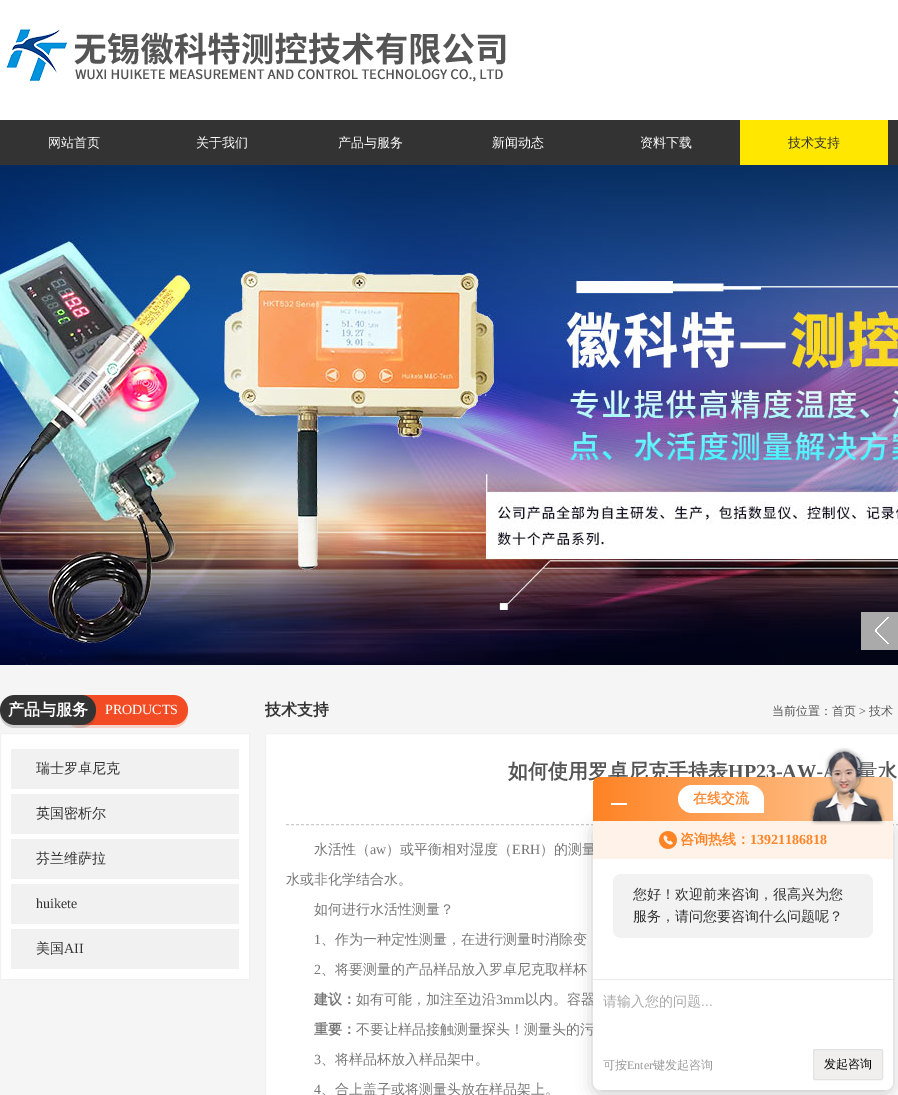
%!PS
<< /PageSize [898 1095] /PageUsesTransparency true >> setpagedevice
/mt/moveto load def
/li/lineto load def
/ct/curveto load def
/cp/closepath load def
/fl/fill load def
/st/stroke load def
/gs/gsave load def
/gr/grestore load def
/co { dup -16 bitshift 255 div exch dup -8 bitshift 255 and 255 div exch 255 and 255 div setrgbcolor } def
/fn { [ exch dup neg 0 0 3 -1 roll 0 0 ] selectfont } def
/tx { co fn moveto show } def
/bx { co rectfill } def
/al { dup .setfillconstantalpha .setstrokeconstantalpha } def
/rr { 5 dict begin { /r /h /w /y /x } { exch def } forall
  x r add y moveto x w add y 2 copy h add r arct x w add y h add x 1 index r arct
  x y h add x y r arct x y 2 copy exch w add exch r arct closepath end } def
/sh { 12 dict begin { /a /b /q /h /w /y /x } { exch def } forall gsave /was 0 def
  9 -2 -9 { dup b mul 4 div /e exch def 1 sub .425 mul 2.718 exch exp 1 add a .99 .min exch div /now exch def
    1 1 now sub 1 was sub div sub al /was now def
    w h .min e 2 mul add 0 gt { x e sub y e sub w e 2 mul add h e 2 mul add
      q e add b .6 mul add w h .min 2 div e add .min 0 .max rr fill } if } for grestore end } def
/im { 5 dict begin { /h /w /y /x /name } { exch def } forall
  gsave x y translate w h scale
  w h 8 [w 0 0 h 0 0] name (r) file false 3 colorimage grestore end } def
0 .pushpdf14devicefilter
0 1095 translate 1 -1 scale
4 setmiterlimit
0 0 898 1095 16#FFFFFF bx
(media/1.raw) 6 29 500 53 im
0 120 898 45 16#333333 bx
740 120 148 45 16#FFE700 bx
(media/2.raw) 0 165 898 500 im
861 612 37 38 16#AAAAAA bx
(media/3.raw) 875 617 14 27 im
0 665 898 430 16#F5F5F5 bx
(media/4.raw) 0 695 188 33 im
16#FFFFFF co
.5 733.5 mt 249.5 733.5 li 249.5 979.5 li .5 979.5 li cp gs fl gr
16#F1F1F1 co
st
11 749 228 40 16#F1F1F1 bx
11 794 228 40 16#F1F1F1 bx
11 839 228 40 16#F1F1F1 bx
11 884 228 40 16#F1F1F1 bx
11 929 228 40 16#F1F1F1 bx
16#FFFFFF co
265.5 733.5 mt 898.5 733.5 li 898.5 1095.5 li 265.5 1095.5 li cp gs fl gr
16#F1F1F1 co
st
16#CCCCCC co
[3 2] 0 setdash
286 824.5 mt 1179 824.5 li st
16#000000 co
593 825 300 269 8 8 .2 sh
(网站首页) 48 147 /WenQuanYiZenHei-Medium 13 16#FFFFFF tx
(关于我们) 196 147 /WenQuanYiZenHei-Medium 13 16#FFFFFF tx
(产品与服务) 338 147 /WenQuanYiZenHei-Medium 13 16#FFFFFF tx
(新闻动态) 492 147 /WenQuanYiZenHei-Medium 13 16#FFFFFF tx
(资料下载) 640 147 /WenQuanYiZenHei-Medium 13 16#FFFFFF tx
(技术支持) 788 147 /WenQuanYiZenHei-Medium 13 16#333333 tx
(产品与服务) 8 715 /WenQuanYiZenHei-Bold 16 16#FFFFFF tx
(PRODUCTS) 105 714 /LiberationSerif-Regular 14 16#FFFFFF tx
(瑞士罗卓尼克) 36 773 /WenQuanYiZenHei-Medium 14 16#333333 tx
(英国密析尔) 36 818 /WenQuanYiZenHei-Medium 14 16#333333 tx
(芬兰维萨拉) 36 863 /WenQuanYiZenHei-Medium 14 16#333333 tx
(huikete) 36 908 /LiberationSerif-Regular 14 16#333333 tx
(美国) 36 953 /WenQuanYiZenHei-Medium 14 16#333333 tx
(AII) 64 953 /LiberationSerif-Regular 14 16#333333 tx
(技术支持) 265 715 /WenQuanYiZenHei-Bold 16 16#333333 tx
(当前位置：首页) 772 715 /WenQuanYiZenHei-Medium 12 16#555555 tx
(>) 859 715 /LiberationSerif-Regular 12 16#555555 tx
(技术) 869 715 /WenQuanYiZenHei-Medium 12 16#555555 tx
(如何使用罗卓尼克手持表) 508 778 /WenQuanYiZenHei-Bold 20 16#555555 tx
(HP23-AW-A) 728 778 /LiberationSerif-Bold 20 16#555555 tx
(量水) 857 778 /WenQuanYiZenHei-Bold 20 16#555555 tx
(水活性（) 314 854 /WenQuanYiZenHei-Medium 14 16#777777 tx
(aw) 370 854 /LiberationSerif-Regular 14 16#777777 tx
(）或平衡相对湿度（) 386 854 /WenQuanYiZenHei-Medium 14 16#777777 tx
(ERH) 512 854 /LiberationSerif-Regular 14 16#777777 tx
(）的测量) 540 854 /WenQuanYiZenHei-Medium 14 16#777777 tx
(水或非化学结合水。) 286 884 /WenQuanYiZenHei-Medium 14 16#777777 tx
(如何进行水活性测量？) 314 914 /WenQuanYiZenHei-Medium 14 16#777777 tx
(1) 314 944 /LiberationSerif-Regular 14 16#777777 tx
(、作为一种定性测量，在进行测量时消除变) 321 944 /WenQuanYiZenHei-Medium 14 16#777777 tx
(2) 314 974 /LiberationSerif-Regular 14 16#777777 tx
(、将要测量的产品样品放入罗卓尼克取样杯) 321 974 /WenQuanYiZenHei-Medium 14 16#777777 tx
(建议：) 314 1004 /WenQuanYiZenHei-Bold 14 16#777777 tx
(如有可能，加注至边沿) 356 1004 /WenQuanYiZenHei-Medium 14 16#777777 tx
(3mm) 496 1004 /LiberationSerif-Regular 14 16#777777 tx
(以内。容器) 525 1004 /WenQuanYiZenHei-Medium 14 16#777777 tx
(重要：) 314 1034 /WenQuanYiZenHei-Bold 14 16#777777 tx
(不要让样品接触测量探头！测量头的污) 356 1034 /WenQuanYiZenHei-Medium 14 16#777777 tx
(3) 314 1064 /LiberationSerif-Regular 14 16#777777 tx
(、将样品杯放入样品架中。) 321 1064 /WenQuanYiZenHei-Medium 14 16#777777 tx
(4) 314 1094 /LiberationSerif-Regular 14 16#777777 tx
(、合上盖子或将测量头放在样品架上。) 321 1094 /WenQuanYiZenHei-Medium 14 16#777777 tx
gs 601 777 mt 885 777 li 889.5 777 893 780.5 893 785 ct 893 821 li 593 821 li 593 785 li 593 780.5 596.5 777 601 777 ct cp clip newpath
<< /ShadingType 2 /ColorSpace /DeviceRGB /Coords [593 799 893 799] /Extend [true true] /Function << /FunctionType 2 /Domain [0 1] /C0 [1 .514 .141] /C1 [.996 .796 .612] /N 1 >> >> shfill gr
611 803 16 2 16#FFFFFF bx
692 785 mt 750 785 li 757.5 785 764 791.5 764 799 ct 764 813 li 692 813 li 684.5 813 678 806.5 678 799 ct 678 791.5 684.5 785 692 785 ct cp fl
(在线交流) 693 803 /WenQuanYiZenHei-Bold 14 16#FB8B36 tx
16#FFFFFF co
593 821 mt 893 821 li 893 1082 li 893 1086.5 889.5 1090 885 1090 ct 601 1090 li 596.5 1090 593 1086.5 593 1082 ct cp fl
593 821 300 38 16#FFF3E9 bx
(media/5.raw) 809 747 76 78 im
(media/6.raw) 659 831 18 18 im
(咨询热线：) 680 844 /WenQuanYiZenHei-Bold 14 16#FF8426 tx
(13921186818) 750 844 /LiberationSerif-Bold 14 16#FF8426 tx
16#F2F2F2 co
613 874 260 64 8 rr fl
(您好！欢迎前来咨询，很高兴为您) 633 899 /WenQuanYiZenHei-Medium 14 16#333333 tx
(服务，请问您要咨询什么问题呢？) 633 921 /WenQuanYiZenHei-Medium 14 16#333333 tx
593 979 300 1 16#EAEAEA bx
(请输入您的问题) 603 1006 /WenQuanYiZenHei-Medium 14 16#AAAAAA tx
(...) 701 1006 /LiberationSans-Regular 14 16#AAAAAA tx
(可按) 603 1069 /WenQuanYiZenHei-Medium 12 16#999999 tx
(Enter) 627 1069 /LiberationSerif-Regular 12 16#999999 tx
(键发起咨询) 653 1069 /WenQuanYiZenHei-Medium 12 16#999999 tx
16#F0EFED co
813.5 1049.5 69 30 1.5 rr gs fl gr
16#E2E2E2 co
[] 0 setdash
st
(发起咨询) 824 1068 /WenQuanYiZenHei-Medium 12 16#000000 tx
.poppdf14devicefilter showpage
